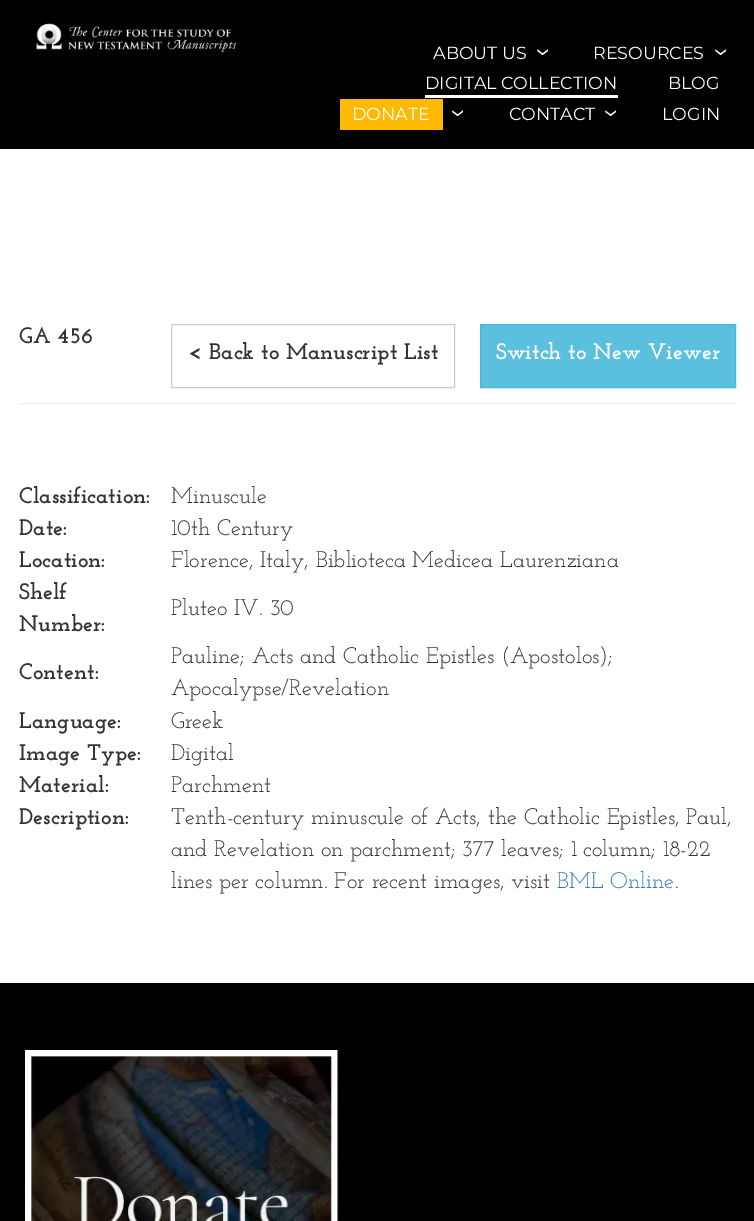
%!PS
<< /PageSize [754 1221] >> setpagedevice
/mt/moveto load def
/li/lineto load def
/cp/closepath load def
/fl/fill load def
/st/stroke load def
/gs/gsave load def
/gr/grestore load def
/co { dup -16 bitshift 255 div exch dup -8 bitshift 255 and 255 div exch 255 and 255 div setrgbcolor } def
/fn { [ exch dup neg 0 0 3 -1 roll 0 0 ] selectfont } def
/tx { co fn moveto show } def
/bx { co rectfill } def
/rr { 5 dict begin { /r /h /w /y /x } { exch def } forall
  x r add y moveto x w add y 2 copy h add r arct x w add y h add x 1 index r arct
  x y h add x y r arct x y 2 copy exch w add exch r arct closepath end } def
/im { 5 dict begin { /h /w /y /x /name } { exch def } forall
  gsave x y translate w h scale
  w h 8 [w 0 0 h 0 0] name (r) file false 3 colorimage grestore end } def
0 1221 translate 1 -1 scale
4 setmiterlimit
0 0 754 1221 16#FFFFFF bx
0 0 754 149 16#000000 bx
(media/1.raw) 36 23 200 30 im
425 95 193 3 16#FFFFFF bx
16#FFB900 co
340 99 103 31 1 rr fl
19 403 717 1 16#EEEEEE bx
16#CCCCCC co
171.5 324.5 283 63 rectstroke
16#5BC0DE co
480.5 324.5 mt 735.5 324.5 li 735.5 387.5 li 480.5 387.5 li cp gs fl gr
16#46B8DA co
st
0 983 754 238 16#000000 bx
(media/2.raw) 25 1050 313 171 im
(ABOUT US) 433 59 /Montserrat-Thin 17.5 16#FFFFFF tx
/Montserrat-Thin 29 fn
gs 535 48 translate 90 rotate 0 0 mt (›) show gr
(RESOURCES) 593 59 /Montserrat-Thin 17.5 16#FFFFFF tx
/Montserrat-Thin 29 fn
gs 713 48 translate 90 rotate 0 0 mt (›) show gr
(DIGITAL COLLECTION) 425 89 /Montserrat-Thin 17.5 16#FFFFFF tx
(BLOG) 668 89 /Montserrat-Thin 17.5 16#FFFFFF tx
(DONATE) 352 120 /Montserrat-Thin 17.5 16#FFFFFF tx
/Montserrat-Thin 29 fn
gs 450 109 translate 90 rotate 0 0 mt (›) show gr
(CONTACT) 509 120 /Montserrat-Thin 17.5 16#FFFFFF tx
/Montserrat-Thin 29 fn
gs 603 109 translate 90 rotate 0 0 mt (›) show gr
(LOGIN) 662 120 /Montserrat-Thin 17.5 16#FFFFFF tx
(GA 456) 19 343 /JosefinSlab-Bold 22.5 16#333333 tx
(Classification:) 19 503 /JosefinSlab-Bold 22.5 16#333333 tx
(Minuscule) 171 503 /JosefinSlab-Regular 22.5 16#333333 tx
(Date:) 19 535 /JosefinSlab-Bold 22.5 16#333333 tx
(10th Century) 171 535 /JosefinSlab-Regular 22.5 16#333333 tx
(Location:) 19 567 /JosefinSlab-Bold 22.5 16#333333 tx
(Florence, Italy, Biblioteca Medicea Laurenziana) 171 567 /JosefinSlab-Regular 22.5 16#333333 tx
(Shelf) 19 599 /JosefinSlab-Bold 22.5 16#333333 tx
(Number:) 19 631 /JosefinSlab-Bold 22.5 16#333333 tx
(Pluteo IV. 30) 171 615 /JosefinSlab-Regular 22.5 16#333333 tx
(Content:) 19 679 /JosefinSlab-Bold 22.5 16#333333 tx
(Pauline; Acts and Catholic Epistles \(Apostolos\);) 171 663 /JosefinSlab-Regular 22.5 16#333333 tx
(Apocalypse/Revelation) 171 695 /JosefinSlab-Regular 22.5 16#333333 tx
(Language:) 19 728 /JosefinSlab-Bold 22.5 16#333333 tx
(Greek) 171 728 /JosefinSlab-Regular 22.5 16#333333 tx
(Image Type:) 19 760 /JosefinSlab-Bold 22.5 16#333333 tx
(Digital) 171 760 /JosefinSlab-Regular 22.5 16#333333 tx
(Material:) 19 792 /JosefinSlab-Bold 22.5 16#333333 tx
(Parchment) 171 792 /JosefinSlab-Regular 22.5 16#333333 tx
(Description:) 19 824 /JosefinSlab-Bold 22.5 16#333333 tx
(Tenth-century minuscule of Acts, the Catholic Epistles, Paul,) 171 824 /JosefinSlab-Regular 22.5 16#333333 tx
(and Revelation on parchment; 377 leaves; 1 column; 18-22) 171 856 /JosefinSlab-Regular 22.5 16#333333 tx
(lines per column. For recent images, visit) 171 888 /JosefinSlab-Regular 22.5 16#333333 tx
(BML Online) 557 888 /JosefinSlab-Regular 22.5 16#337AB7 tx
(.) 675 888 /JosefinSlab-Regular 22.5 16#333333 tx
(< Back to Manuscript List) 187 359 /JosefinSlab-Bold 22.5 16#333333 tx
(Switch to New Viewer) 496 359 /JosefinSlab-Bold 22.5 16#FFFFFF tx
showpage
